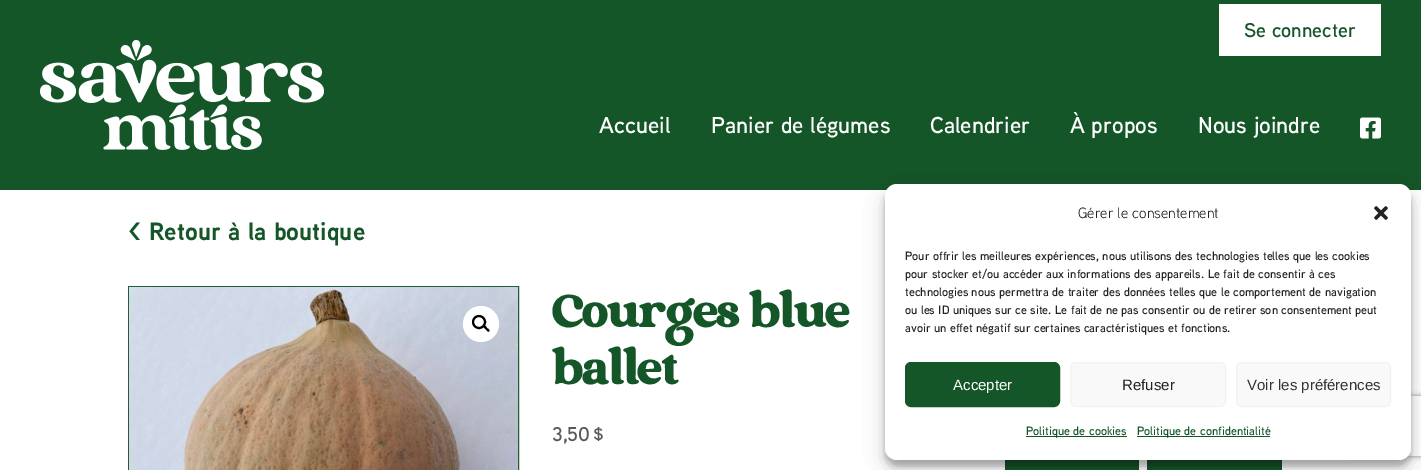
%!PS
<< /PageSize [1421 470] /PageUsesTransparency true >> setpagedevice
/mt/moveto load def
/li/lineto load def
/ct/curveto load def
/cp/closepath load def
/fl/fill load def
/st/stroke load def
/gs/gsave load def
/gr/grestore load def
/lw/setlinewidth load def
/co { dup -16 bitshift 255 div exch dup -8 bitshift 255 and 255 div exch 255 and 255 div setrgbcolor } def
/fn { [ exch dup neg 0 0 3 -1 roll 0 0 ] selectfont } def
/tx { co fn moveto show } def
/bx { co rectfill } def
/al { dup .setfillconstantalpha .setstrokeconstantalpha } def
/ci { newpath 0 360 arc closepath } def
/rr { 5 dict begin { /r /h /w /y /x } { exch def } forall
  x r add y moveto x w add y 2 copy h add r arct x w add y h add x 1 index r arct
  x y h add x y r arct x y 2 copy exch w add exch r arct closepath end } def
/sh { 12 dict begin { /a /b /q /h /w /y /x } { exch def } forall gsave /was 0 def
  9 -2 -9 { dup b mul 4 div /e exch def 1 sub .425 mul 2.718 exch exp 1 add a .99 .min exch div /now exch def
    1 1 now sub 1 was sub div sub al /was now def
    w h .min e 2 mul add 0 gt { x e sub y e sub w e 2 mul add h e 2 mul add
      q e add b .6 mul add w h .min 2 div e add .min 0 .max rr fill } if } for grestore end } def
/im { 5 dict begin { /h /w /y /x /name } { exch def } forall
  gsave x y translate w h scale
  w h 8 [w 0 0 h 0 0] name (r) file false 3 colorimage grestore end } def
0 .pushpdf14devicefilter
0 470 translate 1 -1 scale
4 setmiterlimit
0 0 1421 470 16#FFFFFF bx
0 0 1421 190 16#145628 bx
(media/1.raw) 40 40 284 110 im
1219 4 162 52 16#FFFFFF bx
(media/2.raw) 1360 117 21 22 im
1005 460 134 10 16#155628 bx
1147 460 135 10 16#155628 bx
16#000000 co
885 190 526 276 12 3 .23 sh
885 194 526 276 12 10 .19 sh
gs
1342 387 mt 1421 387 li 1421 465 li 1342 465 li cp 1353 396 mt 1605 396 li 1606 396 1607 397 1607 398 ct 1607 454 li 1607 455 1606 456 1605 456 ct 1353 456 li 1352 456 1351 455 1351 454 ct 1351 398 li 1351 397 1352 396 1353 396 ct cp eoclip newpath
16#808080 co
1351 396 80 60 2 2.5 1 sh
gr
16#FFFFFF co
885 184 526 276 12 rr fl
(media/3.raw) 1374 206 14 14 im
16#145628 co
905.5 362.5 154 44 5.5 rr gs fl gr
st
16#F9F9F9 co
1070.5 362.5 155 44 5.5 rr gs fl gr
16#F2F2F2 co
st
16#F9F9F9 co
1236.5 362.5 154 44 5.5 rr gs fl gr
16#F2F2F2 co
st
1026 436 101 1 16#145628 bx
1137 436 133 1 16#145628 bx
16#215F33 co
128.5 286.5 390 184 rectstroke
(media/4.raw) 129 287 389 183 im
16#FFFFFF co
481 324 18 ci fl
16#000000 co
2 lw
479 322 6 ci st
483.5 325.5 mt 485 324.5 486.5 327 487 328 ct 487.5 328.5 490.5 330 489 331.5 ct 488 332.5 486.5 330 485.5 329 ct 485 328.5 482.5 327 483.5 325.5 ct cp fl
(Se connecter) 1244 37 /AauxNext-SemiBold 20 16#145628 tx
(Accueil) 599 133 /AauxNext-SemiBold 23 16#FFFFFF tx
(Panier de légumes) 711 133 /AauxNext-SemiBold 23 16#FFFFFF tx
(Calendrier) 930 133 /AauxNext-SemiBold 23 16#FFFFFF tx
(À propos) 1070 133 /AauxNext-SemiBold 23 16#FFFFFF tx
(Nous joindre) 1198 133 /AauxNext-SemiBold 23 16#FFFFFF tx
(< Retour à la boutique) 128 240 /AauxNext-Bold 25 16#145628 tx
(Gérer le consentement) 1078 218 /AauxNext-Regular 15 16#222222 tx
(Pour offrir les meilleures expériences, nous utilisons des technologies telles que les cookies) 905 260 /AauxNext-SemiBold 12 16#222222 tx
(pour stocker et/ou accéder aux informations des appareils. Le fait de consentir à ces) 905 278 /AauxNext-SemiBold 12 16#222222 tx
(technologies nous permettra de traiter des données telles que le comportement de navigation) 905 296 /AauxNext-SemiBold 12 16#222222 tx
(ou les ID uniques sur ce site. Le fait de ne pas consentir ou de retirer son consentement peut) 905 314 /AauxNext-SemiBold 12 16#222222 tx
(avoir un effet négatif sur certaines caractéristiques et fonctions.) 905 332 /AauxNext-SemiBold 12 16#222222 tx
(Accepter) 953 390 /LiberationSans-Regular 15 16#FFFFFF tx
(Refuser) 1122 390 /LiberationSans-Regular 15 16#222222 tx
(Voir les préférences) 1247 390 /LiberationSans-Regular 15 16#333333 tx
(Politique de cookies) 1026 435 /AauxNext-SemiBold 12 16#145628 tx
(Politique de confidentialité) 1137 435 /AauxNext-SemiBold 12 16#145628 tx
(Courges blue) 552 327 /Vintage-Bold 44 16#145628 tx
(ballet) 552 384 /Vintage-Bold 44 16#145628 tx
(3,50) 552 441 /AauxNext-SemiBold 20 16#5A5A5A tx
($) 593 441 /AauxNext-SemiBold 20 16#5A5A5A tx
.poppdf14devicefilter showpage
